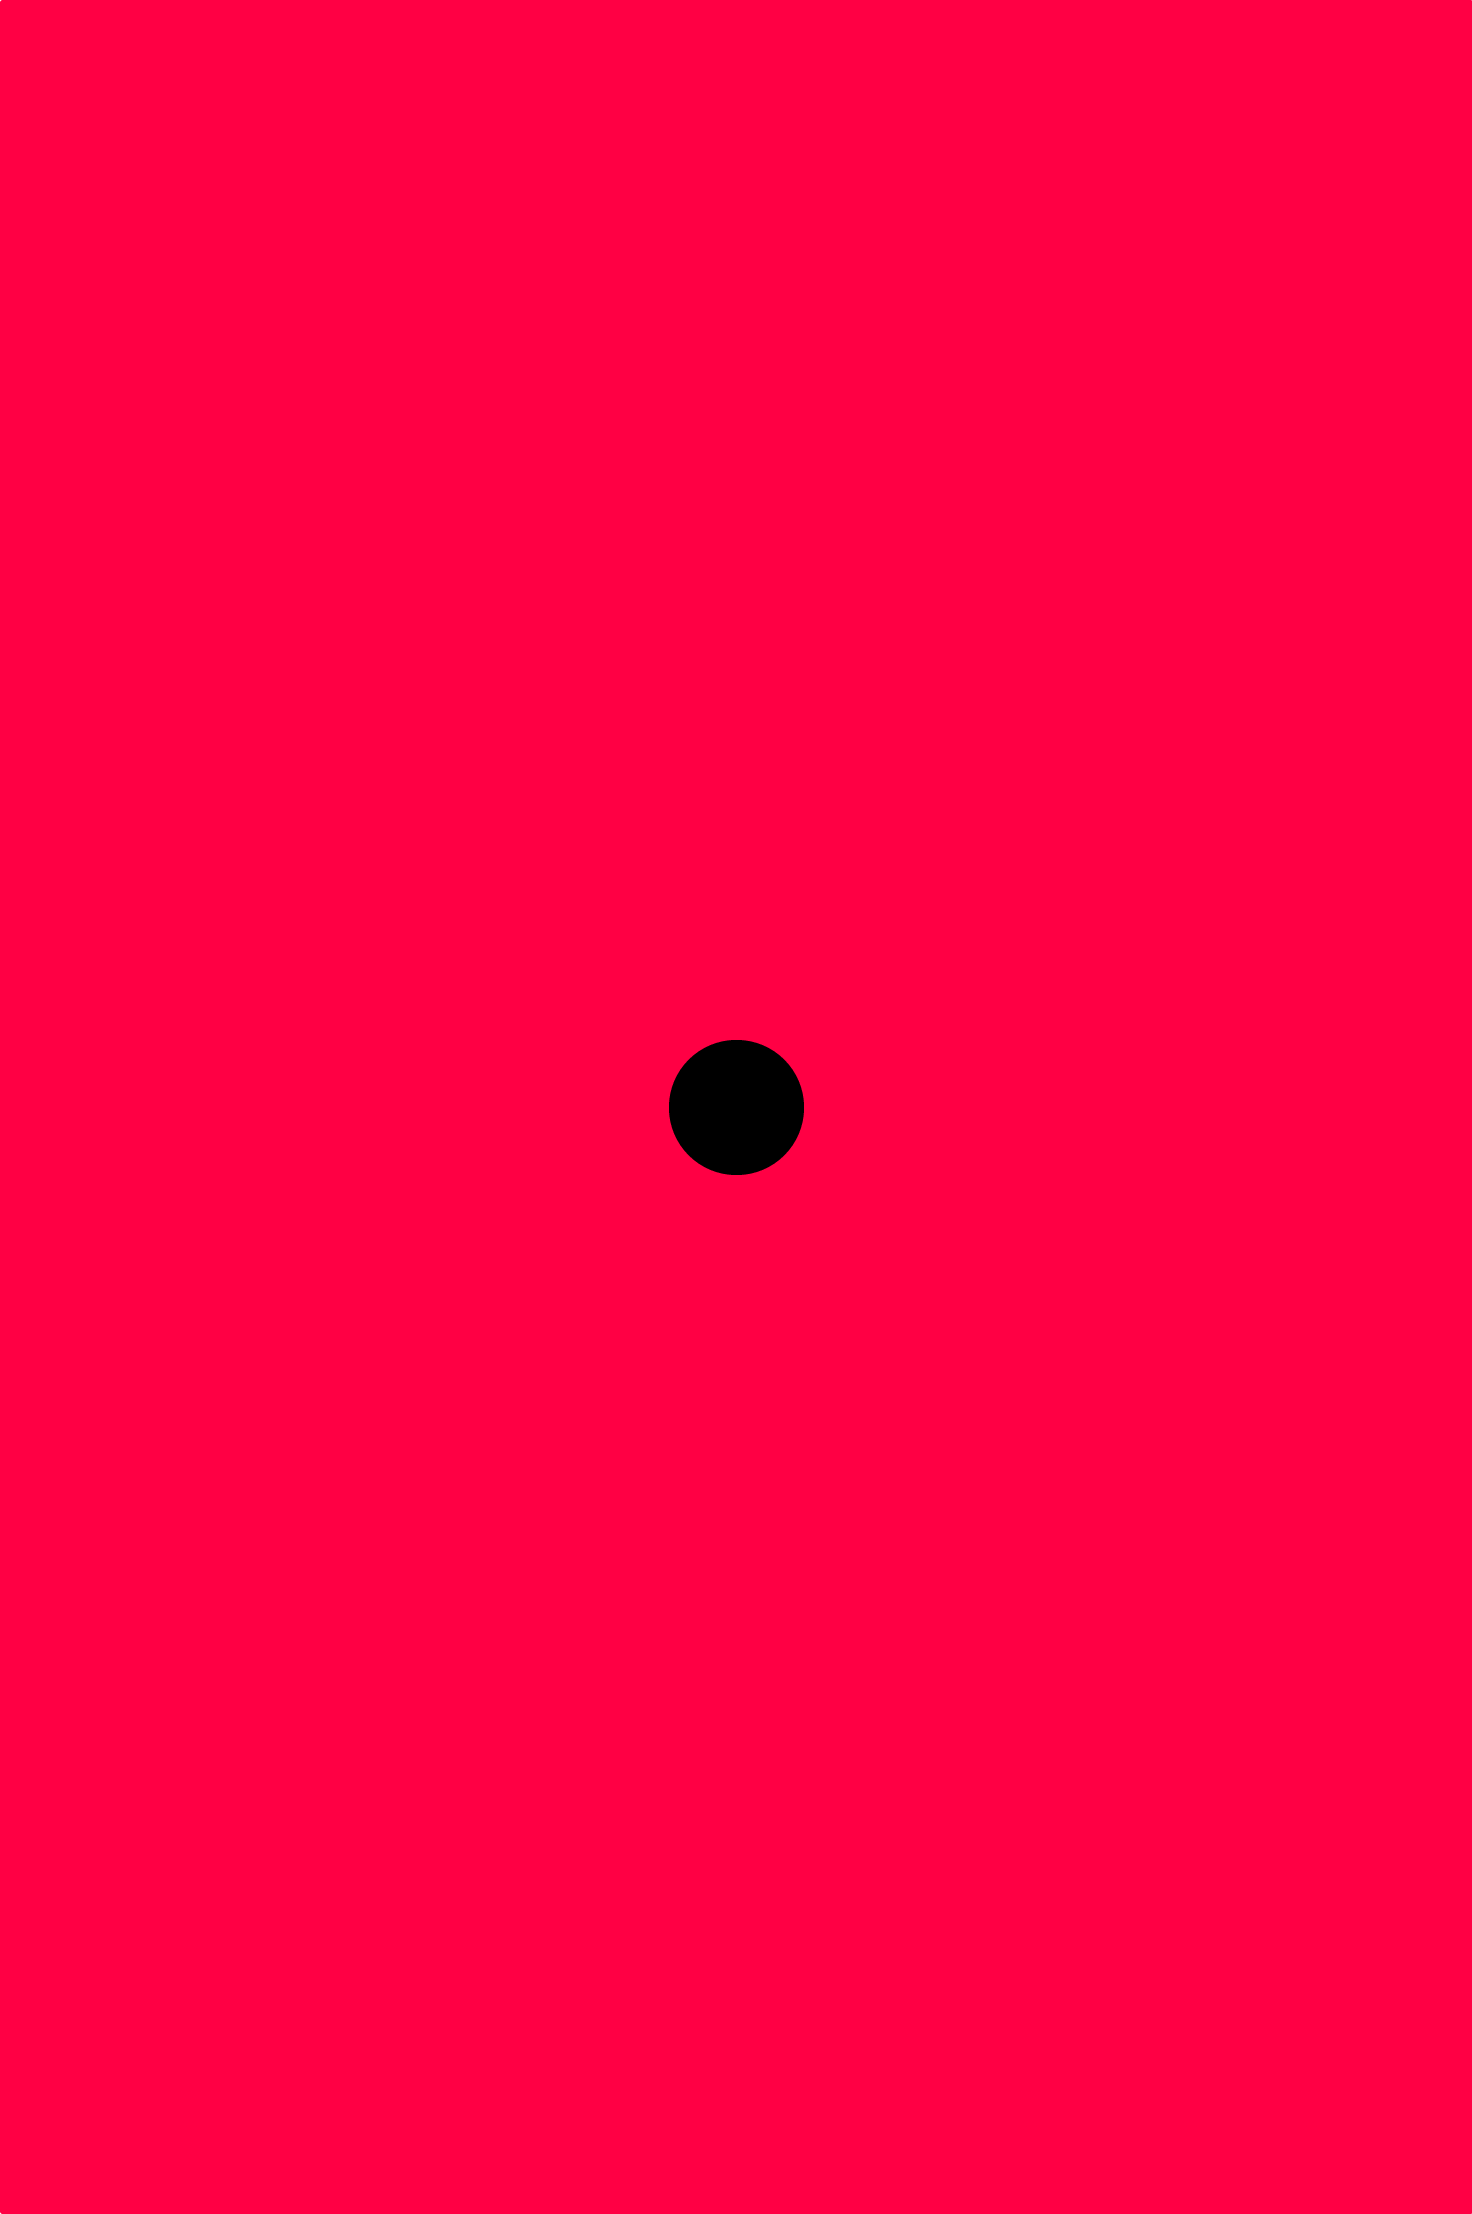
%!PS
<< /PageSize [1472 2214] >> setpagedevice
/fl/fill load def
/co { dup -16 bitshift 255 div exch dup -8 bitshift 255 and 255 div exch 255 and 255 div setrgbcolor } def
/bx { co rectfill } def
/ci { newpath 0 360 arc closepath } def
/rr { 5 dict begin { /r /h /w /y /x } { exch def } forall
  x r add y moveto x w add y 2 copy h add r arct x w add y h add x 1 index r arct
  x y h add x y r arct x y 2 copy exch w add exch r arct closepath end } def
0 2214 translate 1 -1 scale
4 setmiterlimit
0 0 1472 2214 16#FFFFFF bx
16#FF0044 co
0 0 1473 2214 3 rr fl
16#000000 co
736.5 1107.5 67.5 ci fl
showpage
